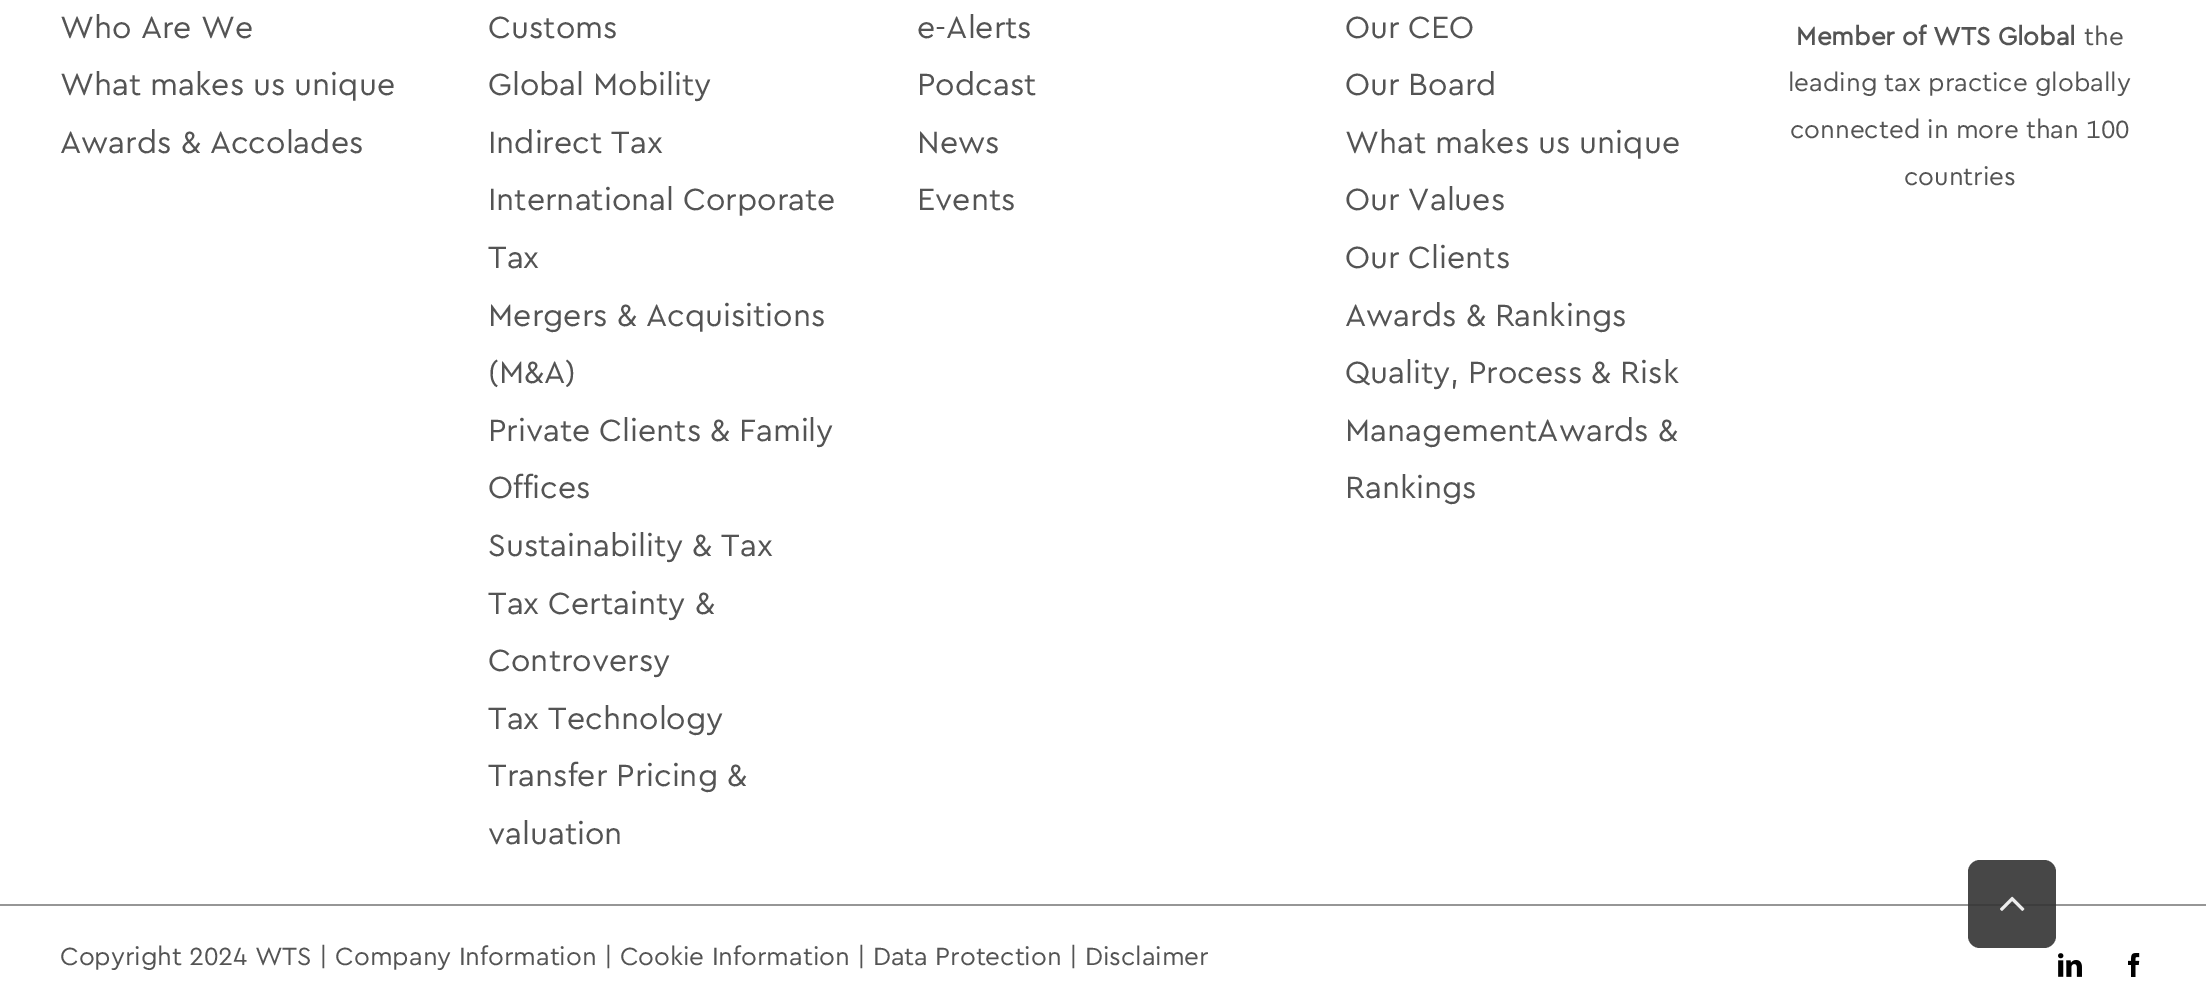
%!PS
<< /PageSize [2206 1008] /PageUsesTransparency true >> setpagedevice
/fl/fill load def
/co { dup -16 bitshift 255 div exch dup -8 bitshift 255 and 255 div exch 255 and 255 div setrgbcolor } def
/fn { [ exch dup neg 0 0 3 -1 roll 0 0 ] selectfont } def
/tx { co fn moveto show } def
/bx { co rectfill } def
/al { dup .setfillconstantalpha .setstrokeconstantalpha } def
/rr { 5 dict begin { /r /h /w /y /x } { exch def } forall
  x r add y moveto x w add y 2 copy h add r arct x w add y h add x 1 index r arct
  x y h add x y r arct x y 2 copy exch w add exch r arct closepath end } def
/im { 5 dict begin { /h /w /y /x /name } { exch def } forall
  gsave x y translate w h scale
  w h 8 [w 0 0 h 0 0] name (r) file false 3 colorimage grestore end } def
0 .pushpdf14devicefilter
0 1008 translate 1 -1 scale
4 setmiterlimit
0 0 2206 1008 16#FFFFFF bx
0 904 2206 2 16#969696 bx
(media/1.raw) 2058 953 24 24 im
(media/2.raw) 2128 953 12 24 im
0.9 al
16#333333 co
1968 860 88 88 12 rr fl
1 al
(media/3.raw) 2000 896 25 15 im
(Who Are We) 60 38 /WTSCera-Regular 32 16#545454 tx
(What makes us unique) 60 95 /WTSCera-Regular 32 16#545454 tx
(Awards & Accolades) 60 153 /WTSCera-Regular 32 16#545454 tx
(Customs) 488 38 /WTSCera-Regular 32 16#545454 tx
(Global Mobility) 488 95 /WTSCera-Regular 32 16#545454 tx
(Indirect Tax) 488 153 /WTSCera-Regular 32 16#545454 tx
(International Corporate) 488 210 /WTSCera-Regular 32 16#545454 tx
(Tax) 488 268 /WTSCera-Regular 32 16#545454 tx
(Mergers & Acquisitions) 488 326 /WTSCera-Regular 32 16#545454 tx
(\(M&A\)) 488 383 /WTSCera-Regular 32 16#545454 tx
(Private Clients & Family) 488 441 /WTSCera-Regular 32 16#545454 tx
(Offices) 488 498 /WTSCera-Regular 32 16#545454 tx
(Sustainability & Tax) 488 556 /WTSCera-Regular 32 16#545454 tx
(Tax Certainty &) 488 614 /WTSCera-Regular 32 16#545454 tx
(Controversy) 488 671 /WTSCera-Regular 32 16#545454 tx
(Tax Technology) 488 729 /WTSCera-Regular 32 16#545454 tx
(Transfer Pricing &) 488 786 /WTSCera-Regular 32 16#545454 tx
(valuation) 488 844 /WTSCera-Regular 32 16#545454 tx
(e-Alerts) 917 38 /WTSCera-Regular 32 16#545454 tx
(Podcast) 917 95 /WTSCera-Regular 32 16#545454 tx
(News) 917 153 /WTSCera-Regular 32 16#545454 tx
(Events) 917 210 /WTSCera-Regular 32 16#545454 tx
(Our CEO) 1345 38 /WTSCera-Regular 32 16#545454 tx
(Our Board) 1345 95 /WTSCera-Regular 32 16#545454 tx
(What makes us unique) 1345 153 /WTSCera-Regular 32 16#545454 tx
(Our Values) 1345 210 /WTSCera-Regular 32 16#545454 tx
(Our Clients) 1345 268 /WTSCera-Regular 32 16#545454 tx
(Awards & Rankings) 1345 326 /WTSCera-Regular 32 16#545454 tx
(Quality, Process & Risk) 1345 383 /WTSCera-Regular 32 16#545454 tx
(ManagementAwards &) 1345 441 /WTSCera-Regular 32 16#545454 tx
(Rankings) 1345 498 /WTSCera-Regular 32 16#545454 tx
(Member of WTS Global) 1796 45 /WTSCera-Bold 26 16#545454 tx
(the) 2084 45 /WTSCera-Regular 26 16#545454 tx
(leading tax practice globally) 1788 91 /WTSCera-Regular 26 16#545454 tx
(connected in more than 100) 1790 138 /WTSCera-Regular 26 16#545454 tx
(countries) 1904 185 /WTSCera-Regular 26 16#545454 tx
(Copyright 2024 WTS | Company Information | Cookie Information | Data Protection | Disclaimer) 60 965 /WTSCera-Regular 26 16#545454 tx
.poppdf14devicefilter showpage
